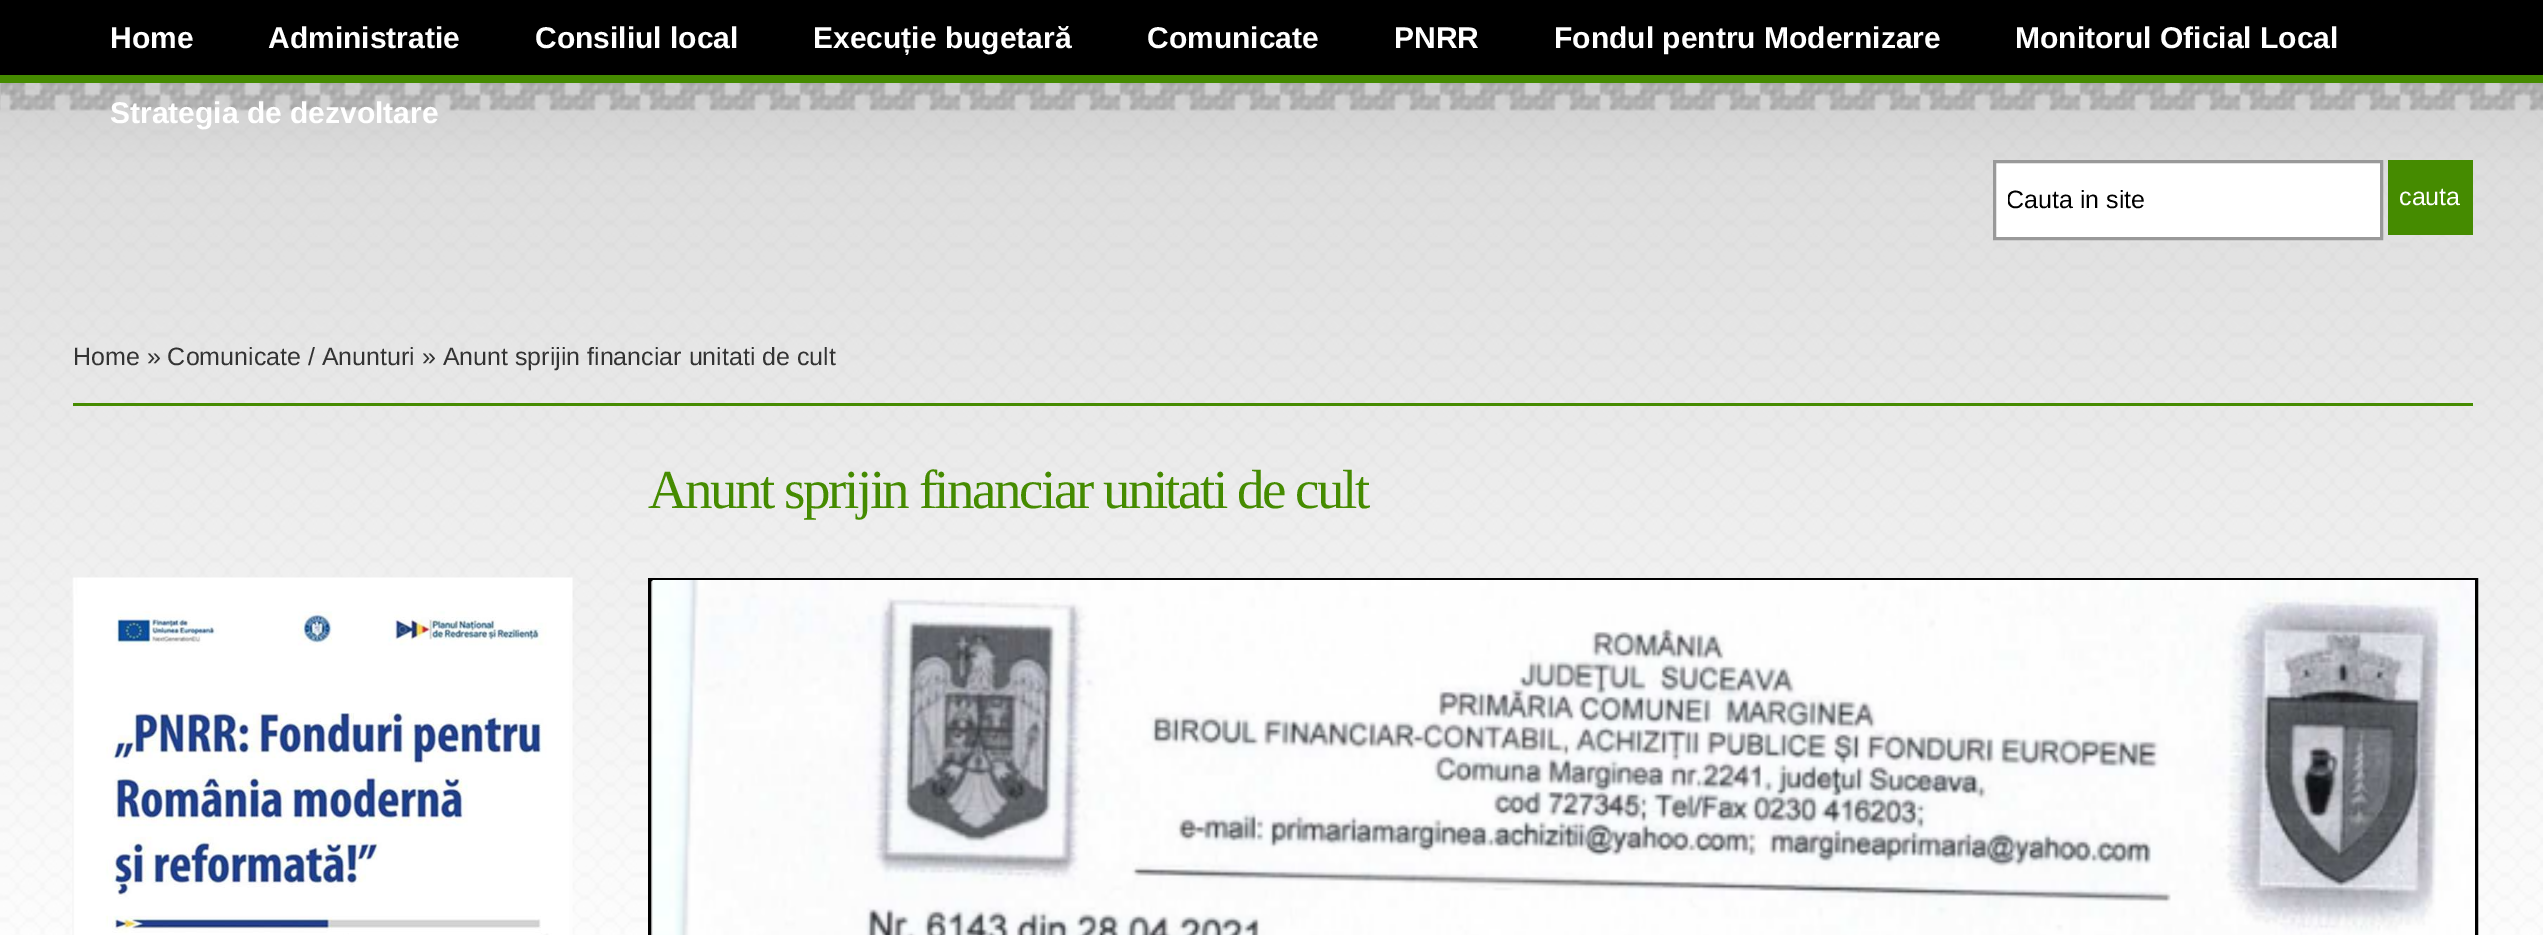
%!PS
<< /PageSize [2543 935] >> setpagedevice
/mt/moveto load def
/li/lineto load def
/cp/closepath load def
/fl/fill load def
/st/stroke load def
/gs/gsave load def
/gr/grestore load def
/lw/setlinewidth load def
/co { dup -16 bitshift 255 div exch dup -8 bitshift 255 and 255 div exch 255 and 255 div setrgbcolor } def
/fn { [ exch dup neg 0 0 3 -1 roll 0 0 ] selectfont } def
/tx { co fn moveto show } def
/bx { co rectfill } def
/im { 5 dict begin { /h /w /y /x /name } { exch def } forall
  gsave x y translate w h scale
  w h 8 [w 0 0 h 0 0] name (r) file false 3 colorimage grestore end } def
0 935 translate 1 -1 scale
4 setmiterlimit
0 0 2543 935 16#FFFFFF bx
(media/1.raw) 0 83 2543 852 im
0 0 2543 75 16#000000 bx
0 75 2543 8 16#458B00 bx
16#FFFFFF co
1994.5 161.5 mt 2381.5 161.5 li 2381.5 238.5 li 1994.5 238.5 li cp gs fl gr
16#999999 co
3 lw
st
2388 160 85 75 16#458B00 bx
73 403 2400 3 16#458B00 bx
(media/2.raw) 72 577 501 358 im
651 581 2 354 16#D3D3D3 bx
16#000000 co
649.5 579.5 1827 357 rectstroke
(media/3.raw) 652 580 1823 355 im
(Home) 110 48 /LiberationSans-Bold 30 16#FFFFFF tx
(Administratie) 268 48 /LiberationSans-Bold 30 16#FFFFFF tx
(Consiliul local) 535 48 /LiberationSans-Bold 30 16#FFFFFF tx
(Execuție bugetară) 813 48 /LiberationSans-Bold 30 16#FFFFFF tx
(Comunicate) 1147 48 /LiberationSans-Bold 30 16#FFFFFF tx
(PNRR) 1394 48 /LiberationSans-Bold 30 16#FFFFFF tx
(Fondul pentru Modernizare) 1554 48 /LiberationSans-Bold 30 16#FFFFFF tx
(Monitorul Oficial Local) 2015 48 /LiberationSans-Bold 30 16#FFFFFF tx
(Strategia de dezvoltare) 110 123 /LiberationSans-Bold 30 16#FFFFFF tx
gs
2008 173 362 55 rectclip
(Cauta in site) 2006 208 /LiberationSans-Regular 25 16#000000 tx
gr
(cauta) 2399 205 /LiberationSans-Regular 25 16#FFFFFF tx
(Home » Comunicate / Anunturi » Anunt sprijin financiar unitati de cult) 73 365 /LiberationSans-Regular 25 16#333333 tx
/LiberationSerif-Regular 55 fn
16#458B00 co
648 508 mt -2.5 0 (Anunt sprijin financiar unitati de cult) ashow
showpage
